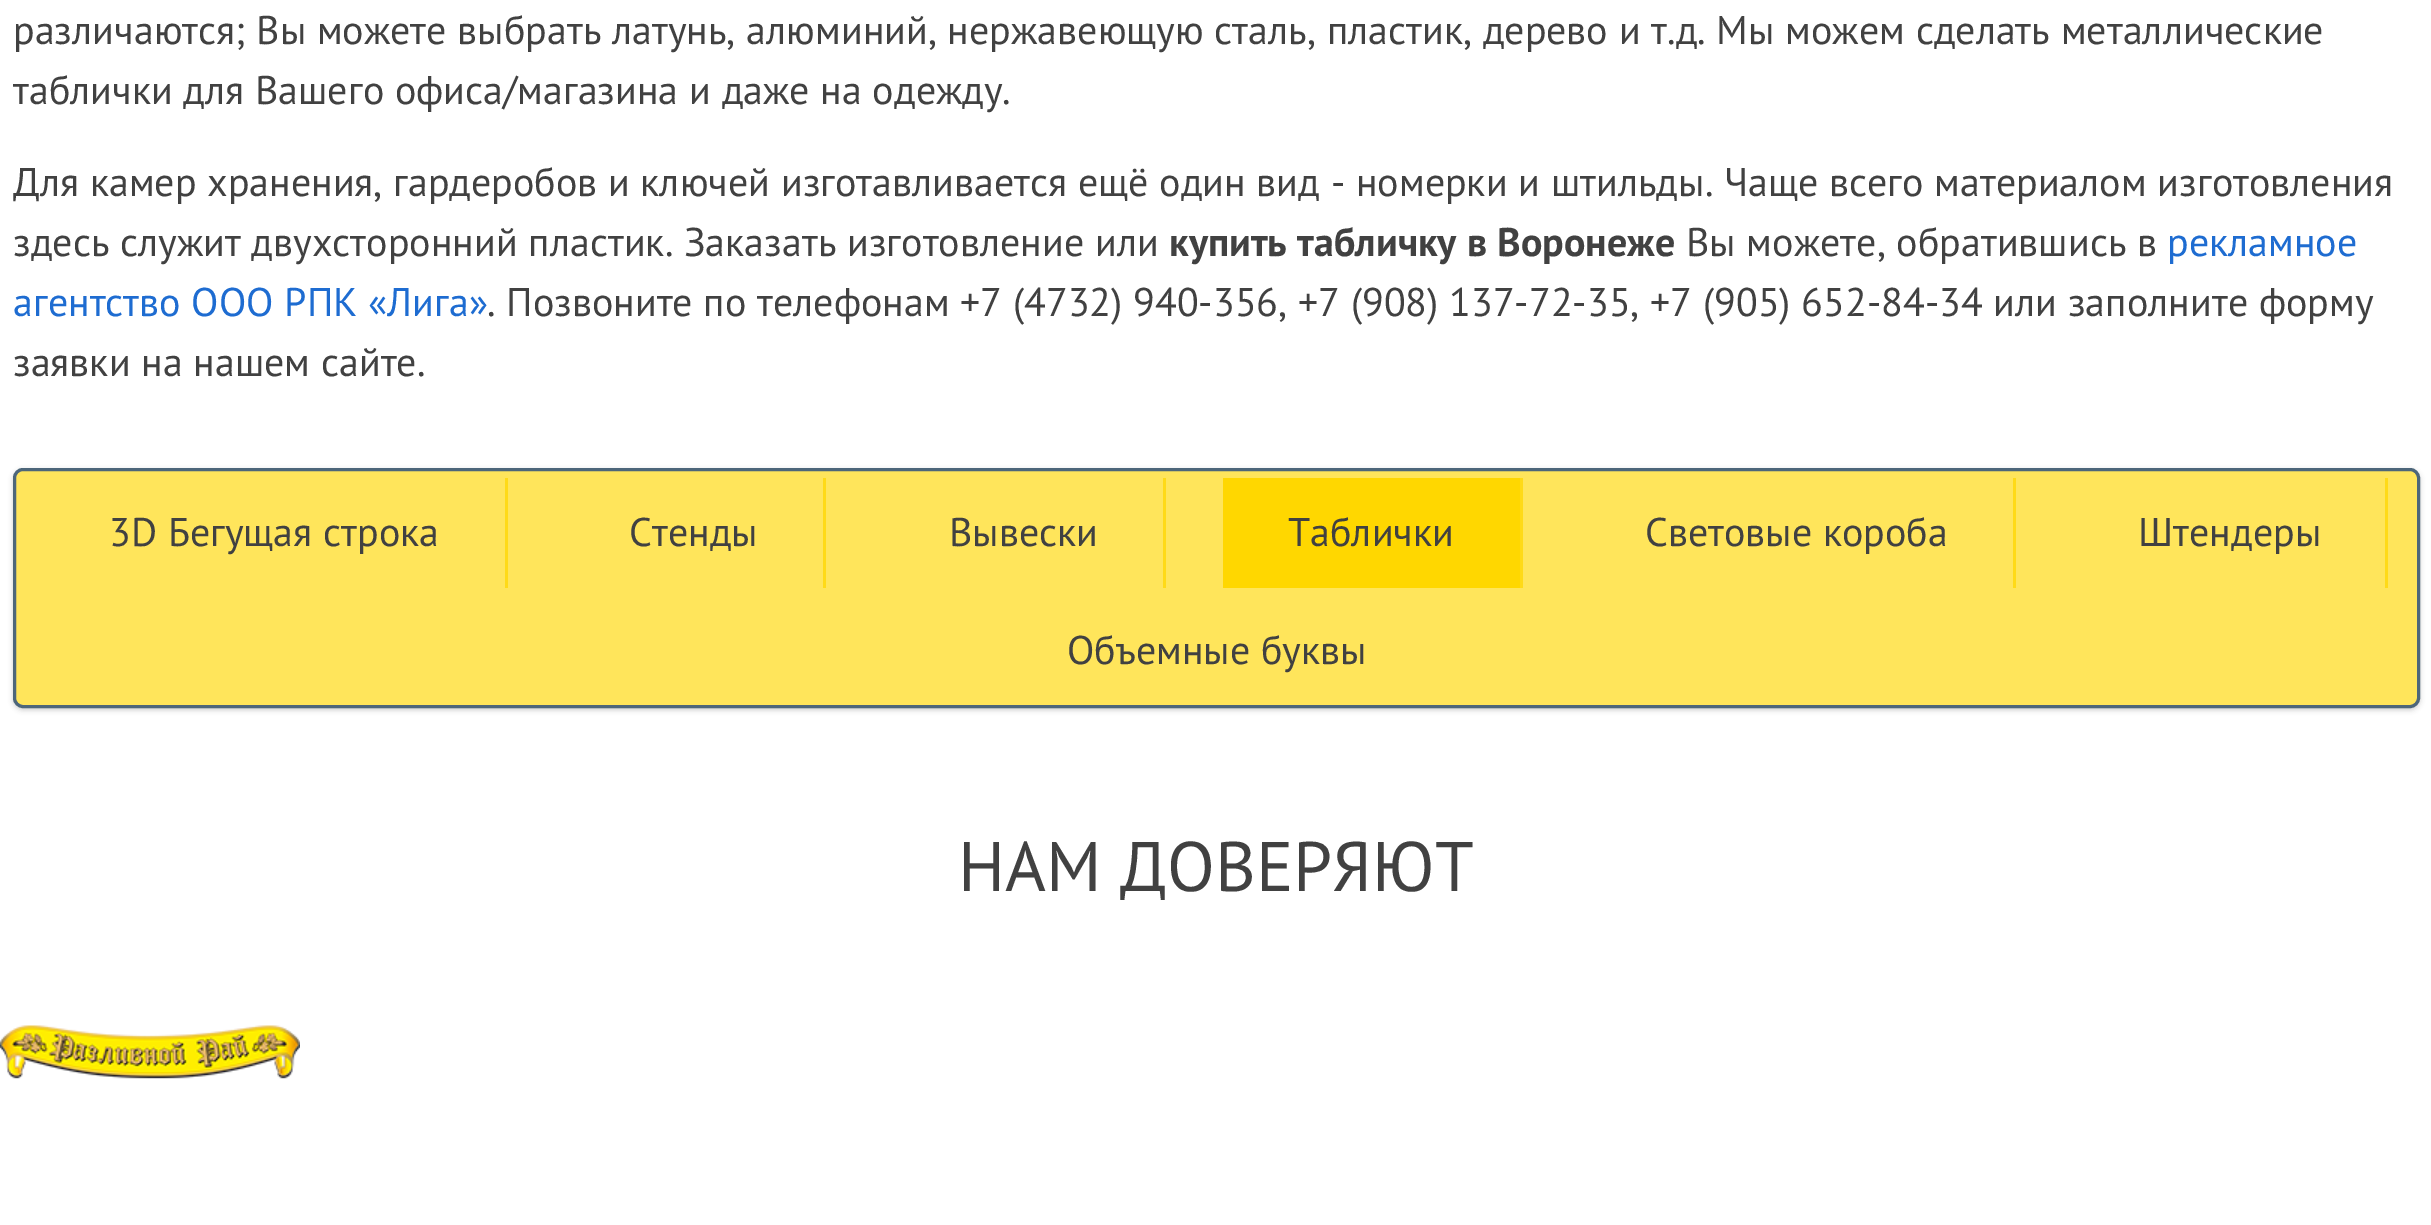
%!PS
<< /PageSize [2431 1225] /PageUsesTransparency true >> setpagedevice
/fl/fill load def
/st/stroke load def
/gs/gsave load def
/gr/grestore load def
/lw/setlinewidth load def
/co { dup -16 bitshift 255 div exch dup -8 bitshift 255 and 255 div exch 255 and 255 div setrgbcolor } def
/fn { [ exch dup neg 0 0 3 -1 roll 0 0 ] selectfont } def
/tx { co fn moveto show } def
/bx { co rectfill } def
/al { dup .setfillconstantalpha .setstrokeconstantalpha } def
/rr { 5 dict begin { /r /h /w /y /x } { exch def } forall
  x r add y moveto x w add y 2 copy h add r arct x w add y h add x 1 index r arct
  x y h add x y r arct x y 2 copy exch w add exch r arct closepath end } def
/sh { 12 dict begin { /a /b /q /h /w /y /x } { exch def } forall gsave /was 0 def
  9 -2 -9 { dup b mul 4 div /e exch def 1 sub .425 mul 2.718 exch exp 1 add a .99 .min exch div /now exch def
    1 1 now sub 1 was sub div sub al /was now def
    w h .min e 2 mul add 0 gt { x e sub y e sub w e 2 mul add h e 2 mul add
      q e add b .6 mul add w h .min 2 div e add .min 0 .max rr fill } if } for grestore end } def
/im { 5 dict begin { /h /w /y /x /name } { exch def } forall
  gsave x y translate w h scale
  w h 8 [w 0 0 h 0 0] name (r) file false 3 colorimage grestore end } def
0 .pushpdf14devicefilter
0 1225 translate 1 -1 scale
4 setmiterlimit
0 0 2431 1225 16#FFFFFF bx
16#000000 co
13 470 2407 240 10 2.5 .19 sh
16#FFE55B co
14.5 469.5 2404 237 8.5 rr gs fl gr
16#4D667A co
3 lw
st
505 478 3 110 16#FFDA18 bx
823 478 3 110 16#FFDA18 bx
1163 478 3 110 16#FFDA18 bx
1223 478 297 110 16#FFD700 bx
1520 478 3 110 16#FFDA18 bx
2013 478 3 110 16#FFDA18 bx
2385 478 3 110 16#FFDA18 bx
(media/1.raw) 0 1025 300 54 im
(различаются; Вы можете выбрать латунь, алюминий, нержавеющую сталь, пластик, дерево и т.д. Мы можем сделать металлические) 13 44 /PTSans-Regular 40 16#414141 tx
(таблички для Вашего офиса/магазина и даже на одежду.) 13 104 /PTSans-Regular 40 16#414141 tx
(Для камер хранения, гардеробов и ключей изготавливается ещё один вид - номерки и штильды. Чаще всего материалом изготовления) 13 196 /PTSans-Regular 40 16#414141 tx
(здесь служит двухсторонний пластик. Заказать изготовление или) 13 256 /PTSans-Regular 40 16#414141 tx
(купить табличку в Воронеже) 1169 256 /PTSans-Bold 40 16#414141 tx
(Вы можете, обратившись в) 1686 256 /PTSans-Regular 40 16#414141 tx
(рекламное) 2167 256 /PTSans-Regular 40 16#1E6CD1 tx
(агентство ООО РПК «Лига») 13 316 /PTSans-Regular 40 16#1E6CD1 tx
(. Позвоните по телефонам +7 \(4732\) 940-356, +7 \(908\) 137-72-35, +7 \(905\) 652-84-34 или заполните форму) 487 316 /PTSans-Regular 40 16#414141 tx
(заявки на нашем сайте.) 13 376 /PTSans-Regular 40 16#414141 tx
(3D Бегущая строка) 109 546 /PTSans-Regular 40 16#414141 tx
(Стенды) 629 546 /PTSans-Regular 40 16#414141 tx
(Вывески) 949 546 /PTSans-Regular 40 16#414141 tx
(Таблички) 1288 546 /PTSans-Regular 40 16#414141 tx
(Световые короба) 1645 546 /PTSans-Regular 40 16#414141 tx
(Штендеры) 2138 546 /PTSans-Regular 40 16#414141 tx
(Объемные буквы) 1067 664 /PTSans-Regular 40 16#414141 tx
(НАМ ДОВЕРЯЮТ) 958 891 /PTSans-Regular 70 16#414141 tx
.poppdf14devicefilter showpage
